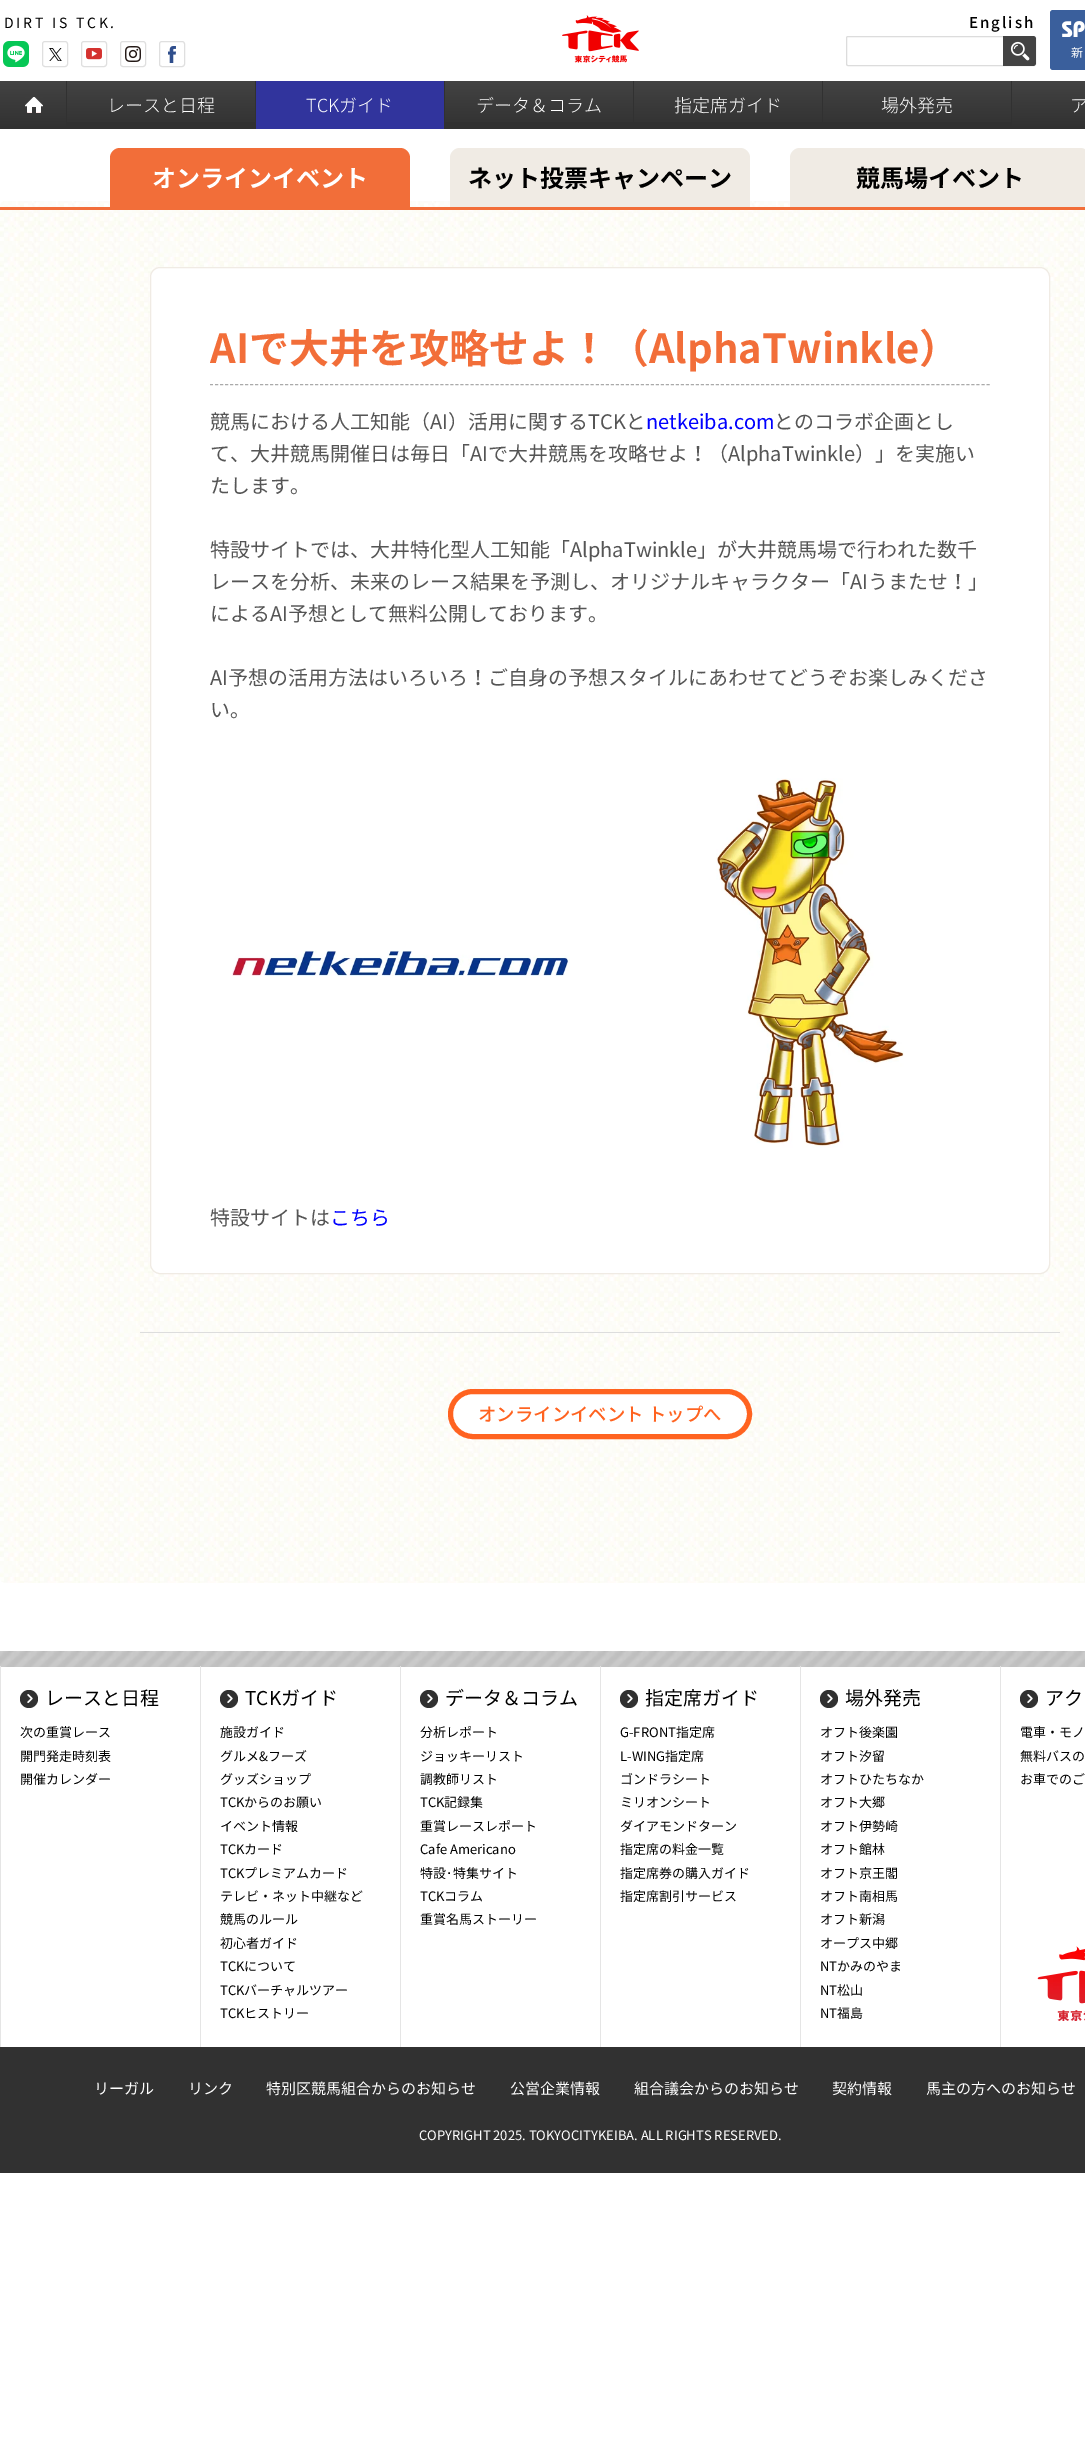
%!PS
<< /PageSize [1085 2461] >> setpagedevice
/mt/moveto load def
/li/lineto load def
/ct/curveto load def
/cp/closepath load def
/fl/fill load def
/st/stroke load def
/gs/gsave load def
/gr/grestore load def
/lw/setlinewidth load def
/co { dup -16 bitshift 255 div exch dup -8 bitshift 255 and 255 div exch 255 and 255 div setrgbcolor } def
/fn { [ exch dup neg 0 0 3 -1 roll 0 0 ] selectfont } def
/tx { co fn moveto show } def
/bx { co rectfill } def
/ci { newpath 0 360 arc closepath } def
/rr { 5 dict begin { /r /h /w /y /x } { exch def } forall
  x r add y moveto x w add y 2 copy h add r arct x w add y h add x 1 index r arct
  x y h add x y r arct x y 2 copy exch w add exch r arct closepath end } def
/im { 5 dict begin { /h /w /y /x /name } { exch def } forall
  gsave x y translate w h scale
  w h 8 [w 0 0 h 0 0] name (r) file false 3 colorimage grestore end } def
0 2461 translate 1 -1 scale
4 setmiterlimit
0 0 1085 2461 16#FFFFFF bx
(media/1.raw) 562 15 77 48 im
(media/2.raw) 3 41 26 26 im
(media/3.raw) 49 48 13 13 im
16#DFDFDF co
42.5 41.5 25 25 2.5 rr st
(media/4.raw) 86 48 16 12 im
81.5 41.5 25 25 2.5 rr st
(media/5.raw) 125 46 16 16 im
120.5 41.5 25 25 2.5 rr st
(media/6.raw) 168 46 8 17 im
159.5 41.5 25 25 2.5 rr st
16#DCDCDC co
846.5 36.5 189 29 1.5 rr st
16#434343 co
1003 36 mt 1033 36 li 1034.5 36 1036 37.5 1036 39 ct 1036 63 li 1036 64.5 1034.5 66 1033 66 ct 1003 66 li cp fl
(media/7.raw) 1010 41 20 20 im
16#3A5F9C co
1050 10 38 60 3 rr fl
(media/8.raw) 1062 21 23 16 im
66 81 946 48 16#313131 bx
gs 0 81 mt 66 81 li 66 129 li 0 129 li cp clip newpath
<< /ShadingType 2 /ColorSpace /DeviceRGB /Coords [33 81 33 129] /Extend [true true] /Function << /FunctionType 2 /Domain [0 1] /C0 [.263 .263 .263] /C1 [.192 .192 .192] /N 1 >> >> shfill gr
(media/9.raw) 25 97 18 16 im
gs 67 81 mt 255 81 li 255 122 li 67 122 li cp clip newpath
<< /ShadingType 2 /ColorSpace /DeviceRGB /Coords [161 81 161 129] /Extend [true true] /Function << /FunctionType 2 /Domain [0 1] /C0 [.263 .263 .263] /C1 [.192 .192 .192] /N 1 >> >> shfill gr
256 81 188 48 16#31349D bx
gs 445 81 mt 633 81 li 633 122 li 445 122 li cp clip newpath
<< /ShadingType 2 /ColorSpace /DeviceRGB /Coords [539 81 539 129] /Extend [true true] /Function << /FunctionType 2 /Domain [0 1] /C0 [.263 .263 .263] /C1 [.192 .192 .192] /N 1 >> >> shfill gr
gs 634 81 mt 822 81 li 822 122 li 634 122 li cp clip newpath
<< /ShadingType 2 /ColorSpace /DeviceRGB /Coords [728 81 728 129] /Extend [true true] /Function << /FunctionType 2 /Domain [0 1] /C0 [.263 .263 .263] /C1 [.192 .192 .192] /N 1 >> >> shfill gr
gs 823 81 mt 1011 81 li 1011 122 li 823 122 li cp clip newpath
<< /ShadingType 2 /ColorSpace /DeviceRGB /Coords [917 81 917 129] /Extend [true true] /Function << /FunctionType 2 /Domain [0 1] /C0 [.263 .263 .263] /C1 [.192 .192 .192] /N 1 >> >> shfill gr
gs 1012 81 mt 1085 81 li 1085 129 li 1012 129 li cp clip newpath
<< /ShadingType 2 /ColorSpace /DeviceRGB /Coords [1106 81 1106 129] /Extend [true true] /Function << /FunctionType 2 /Domain [0 1] /C0 [.263 .263 .263] /C1 [.192 .192 .192] /N 1 >> >> shfill gr
(media/10.raw) 0 201 1085 1382 im
0 207 1085 3 16#F26E39 bx
120 148 mt 400 148 li 405.5 148 410 152.5 410 158 ct 410 207 li 110 207 li 110 158 li 110 152.5 114.5 148 120 148 ct cp fl
16#F0EBE4 co
460 148 mt 740 148 li 745.5 148 750 152.5 750 158 ct 750 207 li 450 207 li 450 158 li 450 152.5 454.5 148 460 148 ct cp fl
800 148 mt 1080 148 li 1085.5 148 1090 152.5 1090 158 ct 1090 207 li 790 207 li 790 158 li 790 152.5 794.5 148 800 148 ct cp fl
16#FFFFFF co
150.5 267.5 899 1006 9.5 rr gs fl gr
16#F0EBE4 co
st
16#AAAAAA co
[3 2.01] 0 setdash
210 384.5 mt 990 384.5 li st
(media/11.raw) 232 950 338 26 im
(media/12.raw) 716 778 188 370 im
140 1332 920 1 16#DDDDDD bx
16#FFFFFF co
450.5 1391.5 299 45 22.5 rr gs fl gr
16#FF6320 co
5 lw
[] 0 setdash
st
(media/13.raw) 0 1651 1085 16 im
0 1666 1 381 16#E5E5E5 bx
16#313131 co
29 1699 9 ci fl
(media/14.raw) 27 1694 6 9 im
200 1666 1 381 16#E5E5E5 bx
16#313131 co
229 1699 9 ci fl
(media/14.raw) 227 1694 6 9 im
400 1666 1 381 16#E5E5E5 bx
16#313131 co
429 1699 9 ci fl
(media/14.raw) 427 1694 6 9 im
600 1666 1 381 16#E5E5E5 bx
16#313131 co
629 1699 9 ci fl
(media/14.raw) 627 1694 6 9 im
800 1666 1 381 16#E5E5E5 bx
16#313131 co
829 1699 9 ci fl
(media/14.raw) 827 1694 6 9 im
1000 1666 1 381 16#E5E5E5 bx
16#313131 co
1029 1699 9 ci fl
(media/14.raw) 1027 1694 6 9 im
0 2047 1085 126 16#313131 bx
(media/15.raw) 1037 1946 48 75 im
/NotoSansJP-Regular 14 fn
16#000000 co
4 28 mt 2.75 0 (DIRT IS TCK.) ashow
/NotoSansJP-Medium 15 fn
969 28 mt 2 0 (English) ashow
(新) 1071 57 /NotoSansJP-Regular 12 16#FFFFFF tx
(レースと日程) 107 112 /NotoSansJP-Light 18 16#FFFFFF tx
(TCKガイド) 306 112 /NotoSansJP-Light 18 16#FFFFFF tx
(データ＆コラム) 476 112 /NotoSansJP-Light 18 16#FFFFFF tx
(指定席ガイド) 674 112 /NotoSansJP-Light 18 16#FFFFFF tx
(場外発売) 881 112 /NotoSansJP-Light 18 16#FFFFFF tx
(ア) 1070 112 /NotoSansJP-Light 18 16#FFFFFF tx
(オンラインイベント) 152 187 /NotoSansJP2-Bold 24 16#FFFFFF tx
(ネット投票キャンペーン) 468 187 /NotoSansJP2-Bold 24 16#000000 tx
(競馬場イベント) 856 187 /NotoSansJP2-Bold 24 16#000000 tx
(AIで大井を攻略せよ！（AlphaTwinkle）) 210 363 /NotoSansJP-Bold 40 16#F26E39 tx
(競馬における人工知能（AI）活用に関するTCKと) 210 429 /NotoSansJP-Regular 20 16#555555 tx
(netkeiba.com) 646 429 /NotoSansJP-Regular 20 16#0000FF tx
(とのコラボ企画とし) 774 429 /NotoSansJP-Regular 20 16#555555 tx
(て、大井競馬開催日は毎日「AIで大井競馬を攻略せよ！（AlphaTwinkle）」を実施い) 210 461 /NotoSansJP-Regular 20 16#555555 tx
(たします。) 210 493 /NotoSansJP-Regular 20 16#555555 tx
(特設サイトでは、大井特化型人工知能「AlphaTwinkle」が大井競馬場で行われた数千) 210 557 /NotoSansJP-Regular 20 16#555555 tx
(レースを分析、未来のレース結果を予測し、オリジナルキャラクター「AIうまたせ！」) 210 589 /NotoSansJP-Regular 20 16#555555 tx
(によるAI予想として無料公開しております。) 210 621 /NotoSansJP-Regular 20 16#555555 tx
(AI予想の活用方法はいろいろ！ご自身の予想スタイルにあわせてどうぞお楽しみくださ) 210 685 /NotoSansJP-Regular 20 16#555555 tx
(い。) 210 717 /NotoSansJP-Regular 20 16#555555 tx
(特設サイトは) 210 1225 /NotoSansJP-Regular 20 16#555555 tx
(こちら) 330 1225 /NotoSansJP-Regular 20 16#0000FF tx
(オンラインイベント トップへ) 478 1421 /NotoSansJP-Medium 18.4 16#FF6320 tx
(レースと日程) 45 1705 /NotoSansJP-Regular 19 16#000000 tx
(次の重賞レース) 20 1737 /NotoSansJP-Regular 13 16#000000 tx
(開門発走時刻表) 20 1761 /NotoSansJP-Regular 13 16#000000 tx
(開催カレンダー) 20 1784 /NotoSansJP-Regular 13 16#000000 tx
(TCKガイド) 245 1705 /NotoSansJP-Regular 19 16#000000 tx
(施設ガイド) 220 1737 /NotoSansJP-Regular 13 16#000000 tx
(グルメ&フーズ) 220 1761 /NotoSansJP-Regular 13 16#000000 tx
(グッズショップ) 220 1784 /NotoSansJP-Regular 13 16#000000 tx
(TCKからのお願い) 220 1807 /NotoSansJP-Regular 13 16#000000 tx
(イベント情報) 220 1831 /NotoSansJP-Regular 13 16#000000 tx
(TCKカード) 220 1854 /NotoSansJP-Regular 13 16#000000 tx
(TCKプレミアムカード) 220 1878 /NotoSansJP-Regular 13 16#000000 tx
(テレビ・ネット中継など) 220 1901 /NotoSansJP-Regular 13 16#000000 tx
(競馬のルール) 220 1924 /NotoSansJP-Regular 13 16#000000 tx
(初心者ガイド) 220 1948 /NotoSansJP-Regular 13 16#000000 tx
(TCKについて) 220 1971 /NotoSansJP-Regular 13 16#000000 tx
(TCKバーチャルツアー) 220 1995 /NotoSansJP-Regular 13 16#000000 tx
(TCKヒストリー) 220 2018 /NotoSansJP-Regular 13 16#000000 tx
(データ＆コラム) 445 1705 /NotoSansJP-Regular 19 16#000000 tx
(分析レポート) 420 1737 /NotoSansJP-Regular 13 16#000000 tx
(ジョッキーリスト) 420 1761 /NotoSansJP-Regular 13 16#000000 tx
(調教師リスト) 420 1784 /NotoSansJP-Regular 13 16#000000 tx
(TCK記録集) 420 1807 /NotoSansJP-Regular 13 16#000000 tx
(重賞レースレポート) 420 1831 /NotoSansJP-Regular 13 16#000000 tx
(Cafe Americano) 420 1854 /NotoSansJP-Regular 13 16#000000 tx
(特設) 420 1878 /NotoSansJP-Regular 13 16#000000 tx
(･) 446 1878 /IPAPGothic-Regular 13 16#000000 tx
(特集サイト) 453 1878 /NotoSansJP-Regular 13 16#000000 tx
(TCKコラム) 420 1901 /NotoSansJP-Regular 13 16#000000 tx
(重賞名馬ストーリー) 420 1924 /NotoSansJP-Regular 13 16#000000 tx
(指定席ガイド) 645 1705 /NotoSansJP-Regular 19 16#000000 tx
(G-FRONT指定席) 620 1737 /NotoSansJP-Regular 13 16#000000 tx
(L-WING指定席) 620 1761 /NotoSansJP-Regular 13 16#000000 tx
(ゴンドラシート) 620 1784 /NotoSansJP-Regular 13 16#000000 tx
(ミリオンシート) 620 1807 /NotoSansJP-Regular 13 16#000000 tx
(ダイアモンドターン) 620 1831 /NotoSansJP-Regular 13 16#000000 tx
(指定席の料金一覧) 620 1854 /NotoSansJP-Regular 13 16#000000 tx
(指定席券の購入ガイド) 620 1878 /NotoSansJP-Regular 13 16#000000 tx
(指定席割引サービス) 620 1901 /NotoSansJP-Regular 13 16#000000 tx
(場外発売) 845 1705 /NotoSansJP-Regular 19 16#000000 tx
(オフト後楽園) 820 1737 /NotoSansJP-Regular 13 16#000000 tx
(オフト汐留) 820 1761 /NotoSansJP-Regular 13 16#000000 tx
(オフトひたちなか) 820 1784 /NotoSansJP-Regular 13 16#000000 tx
(オフト大郷) 820 1807 /NotoSansJP-Regular 13 16#000000 tx
(オフト伊勢崎) 820 1831 /NotoSansJP-Regular 13 16#000000 tx
(オフト館林) 820 1854 /NotoSansJP-Regular 13 16#000000 tx
(オフト京王閣) 820 1878 /NotoSansJP-Regular 13 16#000000 tx
(オフト南相馬) 820 1901 /NotoSansJP-Regular 13 16#000000 tx
(オフト新潟) 820 1924 /NotoSansJP-Regular 13 16#000000 tx
(オープス中郷) 820 1948 /NotoSansJP-Regular 13 16#000000 tx
(NTかみのやま) 820 1971 /NotoSansJP-Regular 13 16#000000 tx
(NT松山) 820 1995 /NotoSansJP-Regular 13 16#000000 tx
(NT福島) 820 2018 /NotoSansJP-Regular 13 16#000000 tx
(アク) 1045 1705 /NotoSansJP-Regular 19 16#000000 tx
(電車・モノ) 1020 1737 /NotoSansJP-Regular 13 16#000000 tx
(無料バスの) 1020 1761 /NotoSansJP-Regular 13 16#000000 tx
(お車でのご) 1020 1784 /NotoSansJP-Regular 13 16#000000 tx
(リーガル) 94 2094 /NotoSansJP-Regular 15 16#FFFFFF tx
(リンク) 188 2094 /NotoSansJP-Regular 15 16#FFFFFF tx
(特別区競馬組合からのお知らせ) 266 2094 /NotoSansJP-Regular 15 16#FFFFFF tx
(公営企業情報) 510 2094 /NotoSansJP-Regular 15 16#FFFFFF tx
(組合議会からのお知らせ) 634 2094 /NotoSansJP-Regular 15 16#FFFFFF tx
(契約情報) 832 2094 /NotoSansJP-Regular 15 16#FFFFFF tx
(馬主の方へのお知らせ) 926 2094 /NotoSansJP-Regular 15 16#FFFFFF tx
(COPYRIGHT 2025. TOKYOCITYKEIBA. ALL RIGHTS RESERVED.) 419 2140 /NotoSansJP-Regular 13 16#FFFFFF tx
showpage
